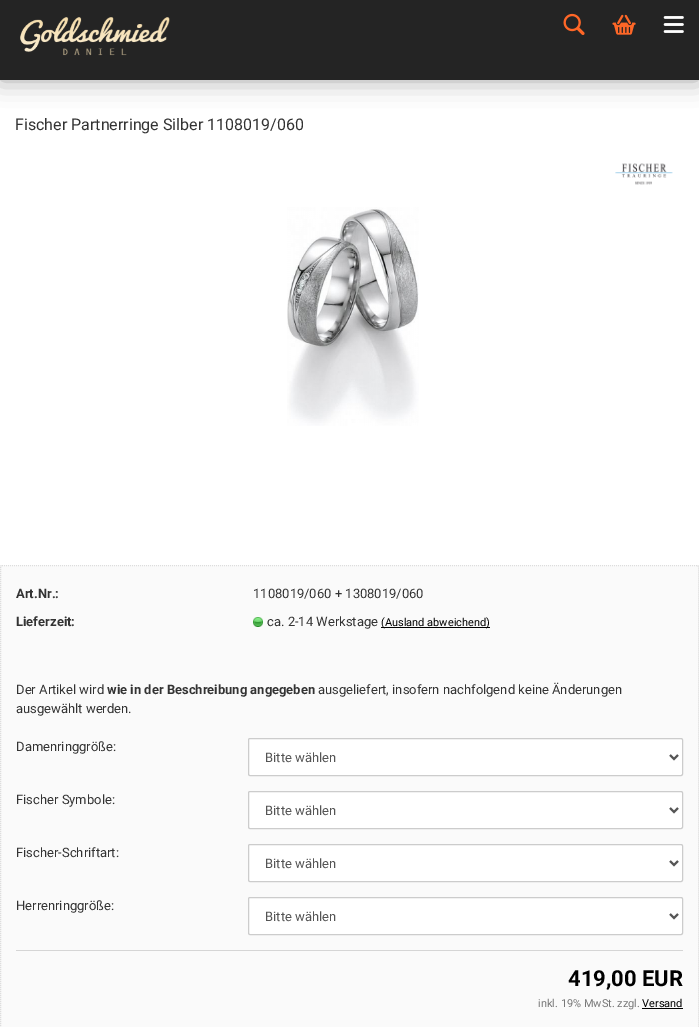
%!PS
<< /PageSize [699 1027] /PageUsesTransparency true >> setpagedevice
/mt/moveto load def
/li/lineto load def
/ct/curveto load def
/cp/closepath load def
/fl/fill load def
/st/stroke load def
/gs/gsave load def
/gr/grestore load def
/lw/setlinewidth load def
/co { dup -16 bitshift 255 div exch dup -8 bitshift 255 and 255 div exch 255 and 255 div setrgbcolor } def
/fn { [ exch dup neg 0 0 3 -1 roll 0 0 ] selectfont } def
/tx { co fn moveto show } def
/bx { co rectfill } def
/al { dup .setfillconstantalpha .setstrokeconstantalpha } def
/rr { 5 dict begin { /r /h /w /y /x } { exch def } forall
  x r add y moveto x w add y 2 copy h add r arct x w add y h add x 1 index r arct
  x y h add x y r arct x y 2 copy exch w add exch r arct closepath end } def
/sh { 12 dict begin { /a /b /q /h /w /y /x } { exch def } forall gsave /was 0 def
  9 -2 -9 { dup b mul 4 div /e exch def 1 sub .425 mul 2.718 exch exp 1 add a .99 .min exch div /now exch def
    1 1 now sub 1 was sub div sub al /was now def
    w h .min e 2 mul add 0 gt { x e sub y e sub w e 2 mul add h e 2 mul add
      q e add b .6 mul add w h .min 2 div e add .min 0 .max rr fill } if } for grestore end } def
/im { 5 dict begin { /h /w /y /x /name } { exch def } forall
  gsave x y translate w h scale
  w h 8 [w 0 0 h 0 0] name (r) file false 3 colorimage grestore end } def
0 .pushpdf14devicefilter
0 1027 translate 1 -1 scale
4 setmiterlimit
0 0 699 1027 16#FFFFFF bx
16#000000 co
0 0 699 80 0 12.5 .35 sh
0 0 699 80 16#242424 bx
(media/1.raw) 20 17 150 39 im
(media/2.raw) 563 13 22 22 im
(media/3.raw) 612 14 24 21 im
(media/4.raw) 663 16 21 17 im
(media/5.raw) 615 163 58 22 im
(media/6.raw) 287 207 132 219 im
16#FAFAFA co
0 565 699 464 2 rr fl
16#DDDDDD co
[1 1] 0 setdash
2 565.5 mt 697 565.5 li 698 565.5 698.5 566 698.5 567 ct 698.5 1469 li 698.5 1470 698 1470.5 697 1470.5 ct 2 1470.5 li 1 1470.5 .5 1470 .5 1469 ct .5 567 li .5 566 1 565.5 2 565.5 ct cp st
(media/7.raw) 253 617 10 10 im
381 627 109 1 16#000000 bx
16 950 667 1 16#D5D5D5 bx
16#FFFFFF co
248.5 738.5 434 37 1.5 rr gs fl gr
16#CCCCCC co
[] 0 setdash
st
16#555555 co
2 lw
670 755 mt 674 759 li 678 755 li st
16#FFFFFF co
248.5 791.5 434 37 1.5 rr gs fl gr
16#CCCCCC co
1 lw
st
16#555555 co
2 lw
670 808 mt 674 812 li 678 808 li st
16#FFFFFF co
248.5 844.5 434 37 1.5 rr gs fl gr
16#CCCCCC co
1 lw
st
16#555555 co
2 lw
670 861 mt 674 865 li 678 861 li st
16#FFFFFF co
248.5 897.5 434 37 1.5 rr gs fl gr
16#CCCCCC co
1 lw
st
16#555555 co
2 lw
670 914 mt 674 918 li 678 914 li st
642 1008 41 1 16#000000 bx
(Fischer Partnerringe Silber 1108019/060) 15 130 /Roboto-Regular 16 16#333333 tx
(Art.Nr.:) 16 598 /Roboto-Bold 13 16#333333 tx
(1108019/060 + 1308019/060) 253 598 /Roboto-Regular 13 16#333333 tx
(Lieferzeit:) 16 626 /Roboto-Bold 13 16#333333 tx
(ca. 2-14 Werkstage) 267 626 /Roboto-Regular 13 16#333333 tx
(\(Ausland abweichend\)) 381 626 /Roboto-Regular 11 16#000000 tx
(Der Artikel wird) 16 694 /Roboto-Regular 13 16#333333 tx
(wie in der Beschreibung angegeben) 107 694 /Roboto-Bold 13 16#333333 tx
(ausgeliefert, insofern nachfolgend keine Änderungen) 318 694 /Roboto-Regular 13 16#333333 tx
(ausgewählt werden.) 16 713 /Roboto-Regular 13 16#333333 tx
(Damenringgröße:) 16 751 /Roboto-Regular 13 16#333333 tx
(Bitte wählen) 265 762 /Roboto-Regular 13 16#555555 tx
(Fischer Symbole:) 16 804 /Roboto-Regular 13 16#333333 tx
(Bitte wählen) 265 815 /Roboto-Regular 13 16#555555 tx
(Fischer-Schriftart:) 16 857 /Roboto-Regular 13 16#333333 tx
(Bitte wählen) 265 868 /Roboto-Regular 13 16#555555 tx
(Herrenringgröße:) 16 910 /Roboto-Regular 13 16#333333 tx
(Bitte wählen) 265 921 /Roboto-Regular 13 16#555555 tx
(419,00 EUR) 568 986 /Roboto-Bold 22 16#000000 tx
(inkl. 19% MwSt. zzgl.) 538 1007 /Roboto-Regular 11 16#777777 tx
(Versand) 642 1007 /Roboto-Regular 11 16#000000 tx
.poppdf14devicefilter showpage
